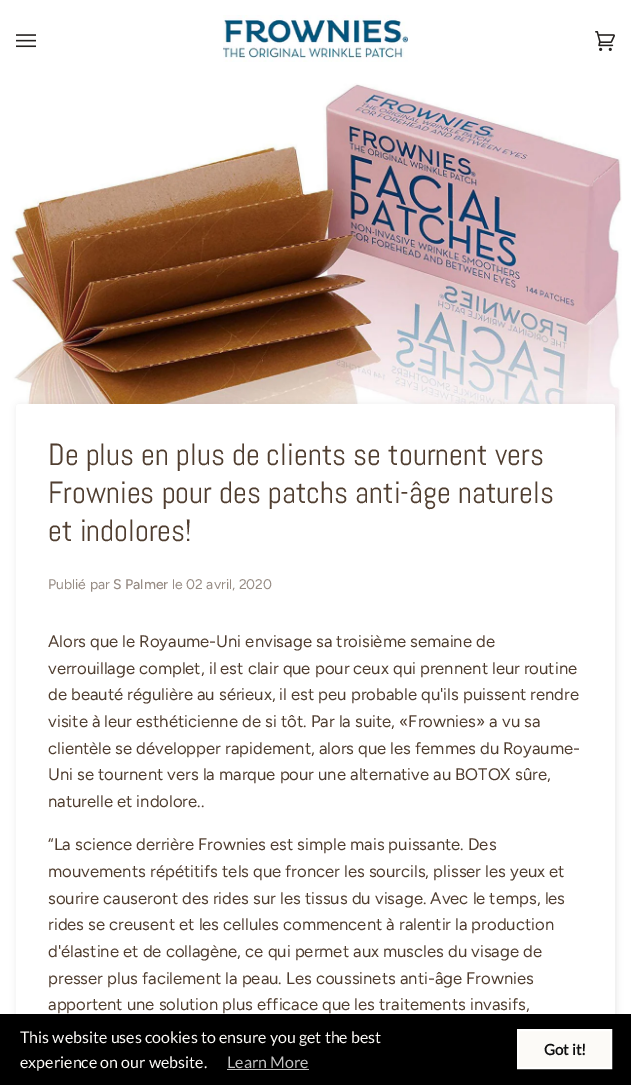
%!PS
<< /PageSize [631 1085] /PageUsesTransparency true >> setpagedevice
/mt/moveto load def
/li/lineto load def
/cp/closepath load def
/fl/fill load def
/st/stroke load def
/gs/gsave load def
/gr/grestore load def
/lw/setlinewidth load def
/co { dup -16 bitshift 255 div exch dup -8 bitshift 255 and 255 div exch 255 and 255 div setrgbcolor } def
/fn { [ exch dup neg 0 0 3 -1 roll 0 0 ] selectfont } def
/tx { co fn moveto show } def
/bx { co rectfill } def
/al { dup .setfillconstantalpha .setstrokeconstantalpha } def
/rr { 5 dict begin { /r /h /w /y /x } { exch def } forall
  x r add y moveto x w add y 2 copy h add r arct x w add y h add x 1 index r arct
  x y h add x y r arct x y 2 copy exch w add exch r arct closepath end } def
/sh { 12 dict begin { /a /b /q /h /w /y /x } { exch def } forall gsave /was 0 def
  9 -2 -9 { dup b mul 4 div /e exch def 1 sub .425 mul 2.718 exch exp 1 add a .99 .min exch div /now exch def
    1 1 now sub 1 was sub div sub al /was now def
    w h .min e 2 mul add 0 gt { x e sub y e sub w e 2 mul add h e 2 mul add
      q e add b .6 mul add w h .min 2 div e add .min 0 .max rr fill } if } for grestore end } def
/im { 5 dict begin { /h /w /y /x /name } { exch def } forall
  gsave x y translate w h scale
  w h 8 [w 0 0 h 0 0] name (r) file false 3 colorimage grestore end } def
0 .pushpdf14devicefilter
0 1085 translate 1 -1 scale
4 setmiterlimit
0 0 631 1085 16#FFFFFF bx
(media/1.raw) 16 34 20 14 im
(media/2.raw) 223 15 185 47 im
(media/3.raw) 595 31 20 20 im
(media/4.raw) 10 83 612 357 im
16#000000 co
17 405 599 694 3 3.5 .1 sh
16#FFFFFF co
16 404 599 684 3 rr fl
0 1014 631 71 16#000000 bx
227 1069 82 1 16#C2C2C2 bx
16#FCFAF7 co
518 1030 mt 611 1030 li 611 1068 li 518 1068 li cp gs fl gr
16#FFFFFF co
2 lw
st
(De plus en plus de clients se tournent vers) 48 465 /Abel-Regular 30.6 16#503E30 tx
(Frownies pour des patchs anti-âge naturels) 48 503 /Abel-Regular 30.6 16#503E30 tx
(et indolores!) 48 541 /Abel-Regular 30.6 16#503E30 tx
(Publié par) 48 589 /Figtree-Regular 14 16#968B83 tx
(S Palmer) 113 589 /Figtree-Medium 14 16#968B83 tx
(le 02 avril, 2020) 172 589 /Figtree-Regular 14 16#968B83 tx
(Alors que le Royaume-Uni envisage sa troisième semaine de) 48 647 /Figtree-Regular 16.7 16#503E30 tx
(verrouillage complet, il est clair que pour ceux qui prennent leur routine) 48 674 /Figtree-Regular 16.7 16#503E30 tx
(de beauté régulière au sérieux, il est peu probable qu'ils puissent rendre) 48 700 /Figtree-Regular 16.7 16#503E30 tx
(visite à leur esthéticienne de si tôt. Par la suite, «Frownies» a vu sa) 48 727 /Figtree-Regular 16.7 16#503E30 tx
(clientèle se développer rapidement, alors que les femmes du Royaume-) 48 754 /Figtree-Regular 16.7 16#503E30 tx
(Uni se tournent vers la marque pour une alternative au BOTOX sûre,) 48 780 /Figtree-Regular 16.7 16#503E30 tx
(naturelle et indolore..) 48 807 /Figtree-Regular 16.7 16#503E30 tx
(“La science derrière Frownies est simple mais puissante. Des) 48 850 /Figtree-Regular 16.7 16#503E30 tx
(mouvements répétitifs tels que froncer les sourcils, plisser les yeux et) 48 877 /Figtree-Regular 16.7 16#503E30 tx
(sourire causeront des rides sur les tissus du visage. Avec le temps, les) 48 904 /Figtree-Regular 16.7 16#503E30 tx
(rides se creusent et les cellules commencent à ralentir la production) 48 930 /Figtree-Regular 16.7 16#503E30 tx
(d'élastine et de collagène, ce qui permet aux muscles du visage de) 48 957 /Figtree-Regular 16.7 16#503E30 tx
(presser plus facilement la peau. Les coussinets anti-âge Frownies) 48 984 /Figtree-Regular 16.7 16#503E30 tx
(apportent une solution plus efficace que les traitements invasifs,) 48 1010 /Figtree-Regular 16.7 16#503E30 tx
(This website uses cookies to ensure you get the best) 20 1043 /Lato-Regular 16 16#FCFAF7 tx
(experience on our website.) 20 1068 /Lato-Regular 16 16#FCFAF7 tx
(Learn More) 227 1068 /Lato-Regular 16 16#C2C2C2 tx
(Got it!) 544 1055 /Lato-Bold 15 16#0D0D0E tx
.poppdf14devicefilter showpage
